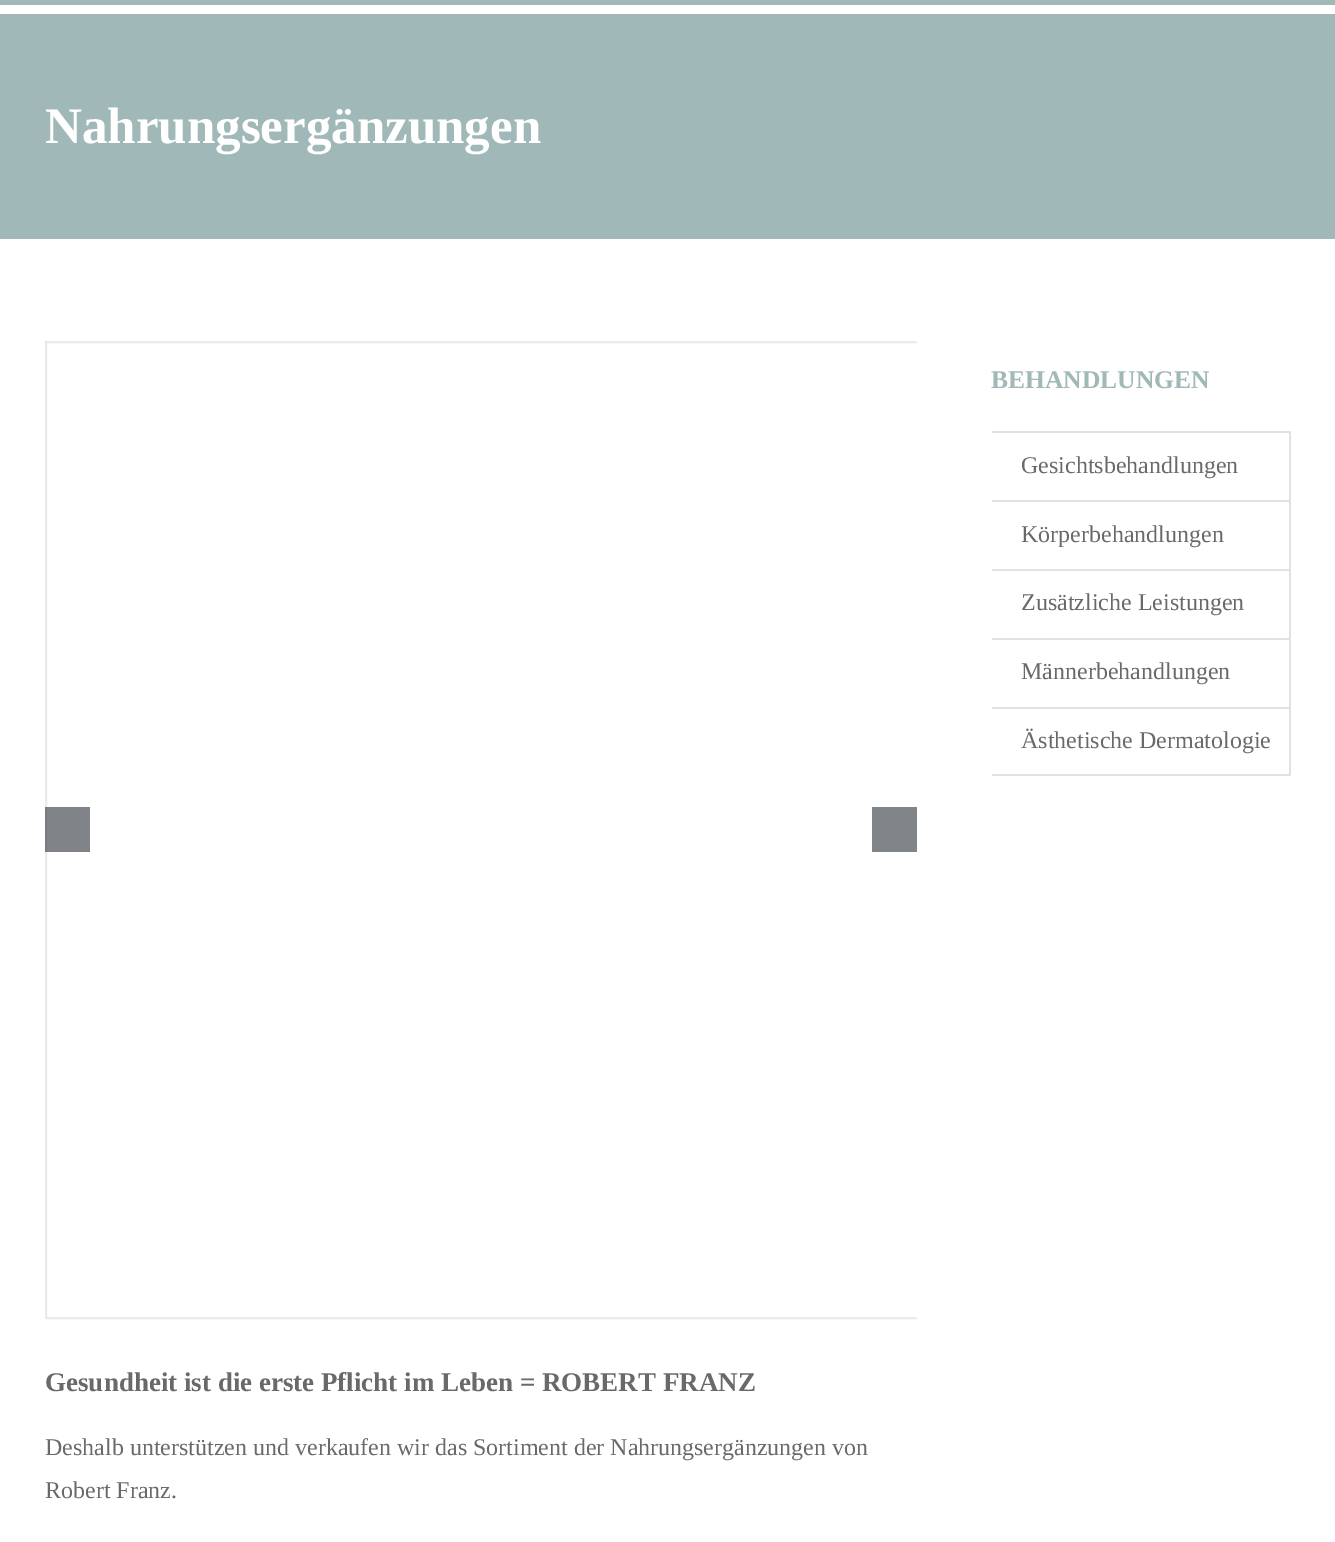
%!PS
<< /PageSize [1335 1542] /PageUsesTransparency true >> setpagedevice
/gs/gsave load def
/gr/grestore load def
/lw/setlinewidth load def
/co { dup -16 bitshift 255 div exch dup -8 bitshift 255 and 255 div exch 255 and 255 div setrgbcolor } def
/fn { [ exch dup neg 0 0 3 -1 roll 0 0 ] selectfont } def
/tx { co fn moveto show } def
/bx { co rectfill } def
/al { dup .setfillconstantalpha .setstrokeconstantalpha } def
0 .pushpdf14devicefilter
0 1542 translate 1 -1 scale
4 setmiterlimit
0 0 1335 1542 16#FFFFFF bx
0 0 1335 5 16#A0B8B8 bx
0 14 1335 225 16#A0B8B8 bx
992 431 298 2 16#E1E1E1 bx
1289 431 2 345 16#E1E1E1 bx
992 500 297 2 16#E1E1E1 bx
992 569 297 2 16#E1E1E1 bx
992 638 297 2 16#E1E1E1 bx
992 707 297 2 16#E1E1E1 bx
992 774 297 2 16#E1E1E1 bx
gs
45 329 872 1002 rectclip
16#E9EAEE co
2 lw
46 342 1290 976 rectstroke
gr
0.56 al
45 807 45 45 16#1D242D bx
1 al
872 807 45 45 16#808589 bx
(Nahrungsergänzungen) 45 143 /LiberationSerif-Bold 51 16#FFFFFF tx
(BEHANDLUNGEN) 991 388 /LiberationSerif-Bold 25.5 16#A0B8B8 tx
(Gesichtsbehandlungen) 1021 473 /LiberationSerif-Regular 24 16#696969 tx
(Körperbehandlungen) 1021 542 /LiberationSerif-Regular 24 16#696969 tx
(Zusätzliche Leistungen) 1021 610 /LiberationSerif-Regular 24 16#696969 tx
(Männerbehandlungen) 1021 679 /LiberationSerif-Regular 24 16#696969 tx
(Ästhetische Dermatologie) 1021 748 /LiberationSerif-Regular 24 16#696969 tx
(Gesundheit ist die erste Pflicht im Leben = ROBERT FRANZ) 45 1391 /LiberationSerif-Bold 27 16#696969 tx
(Deshalb unterstützen und verkaufen wir das Sortiment der Nahrungsergänzungen von) 45 1455 /LiberationSerif-Regular 24 16#696969 tx
(Robert Franz.) 45 1498 /LiberationSerif-Regular 24 16#696969 tx
.poppdf14devicefilter showpage
